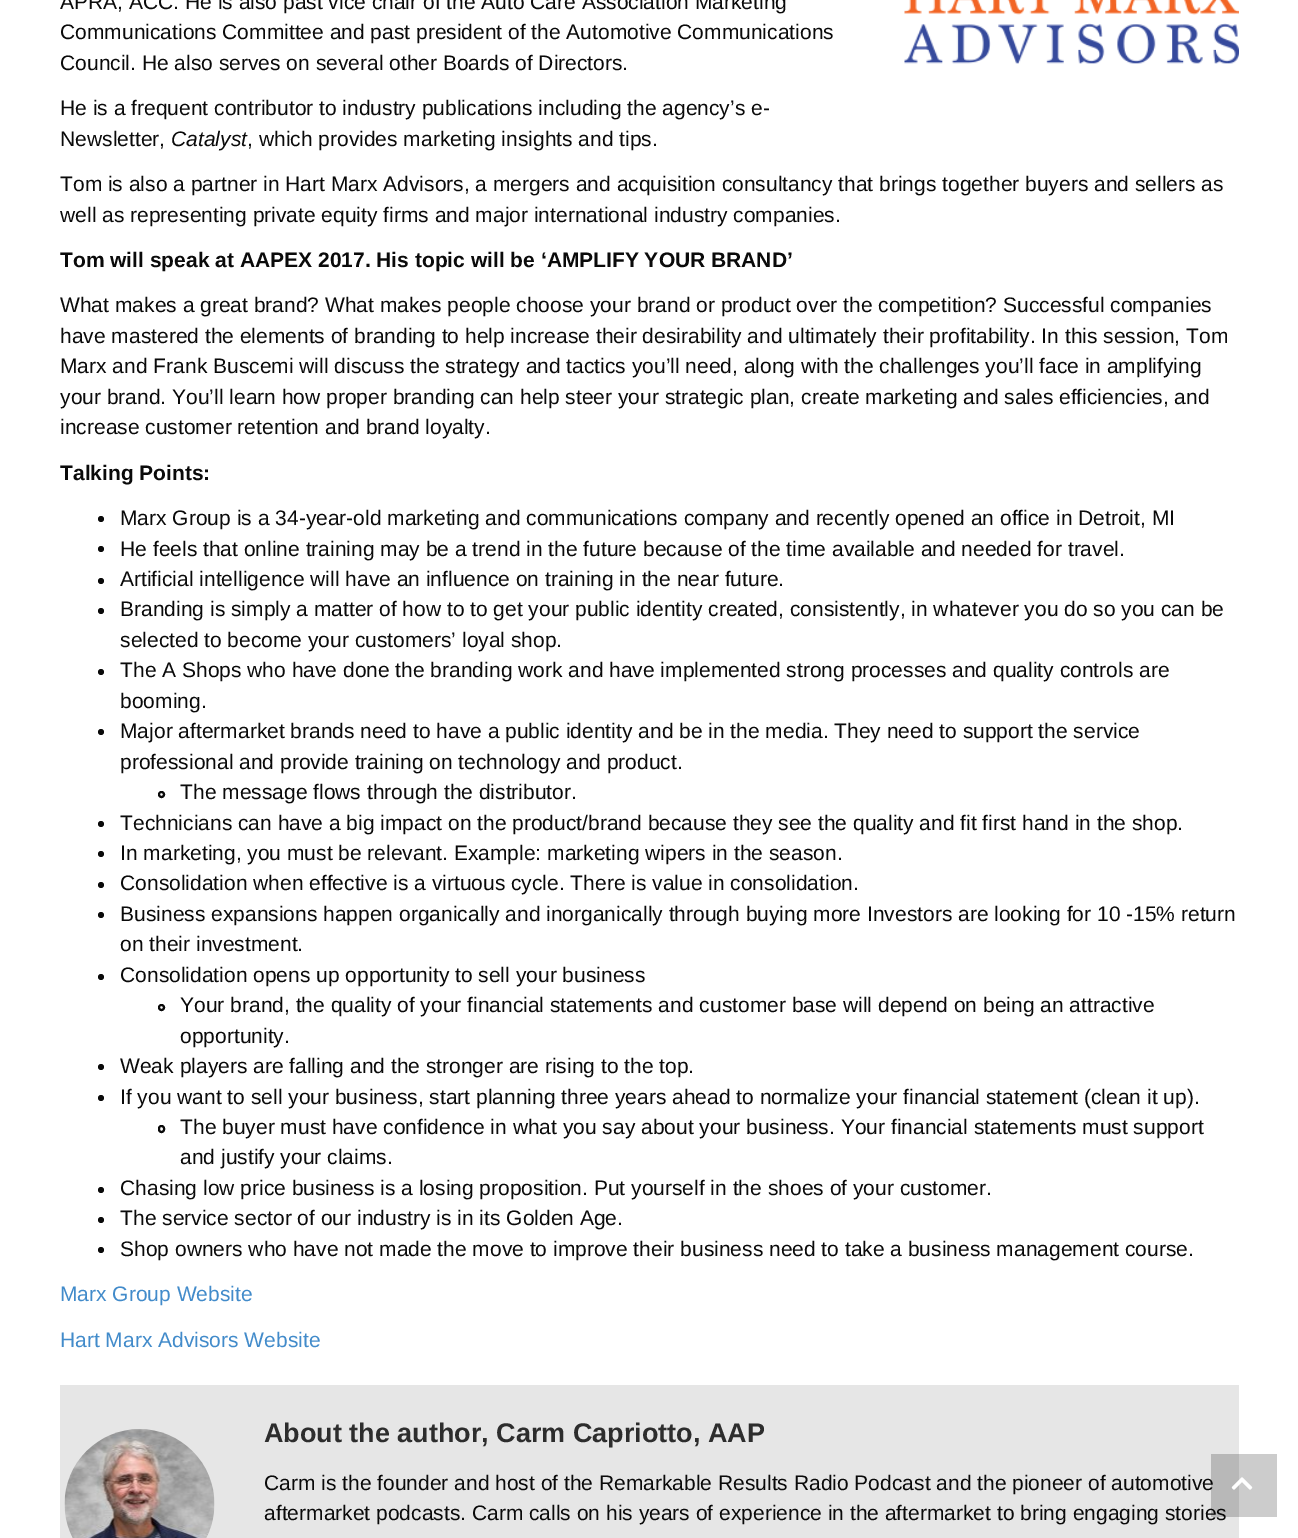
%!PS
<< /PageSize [1298 1538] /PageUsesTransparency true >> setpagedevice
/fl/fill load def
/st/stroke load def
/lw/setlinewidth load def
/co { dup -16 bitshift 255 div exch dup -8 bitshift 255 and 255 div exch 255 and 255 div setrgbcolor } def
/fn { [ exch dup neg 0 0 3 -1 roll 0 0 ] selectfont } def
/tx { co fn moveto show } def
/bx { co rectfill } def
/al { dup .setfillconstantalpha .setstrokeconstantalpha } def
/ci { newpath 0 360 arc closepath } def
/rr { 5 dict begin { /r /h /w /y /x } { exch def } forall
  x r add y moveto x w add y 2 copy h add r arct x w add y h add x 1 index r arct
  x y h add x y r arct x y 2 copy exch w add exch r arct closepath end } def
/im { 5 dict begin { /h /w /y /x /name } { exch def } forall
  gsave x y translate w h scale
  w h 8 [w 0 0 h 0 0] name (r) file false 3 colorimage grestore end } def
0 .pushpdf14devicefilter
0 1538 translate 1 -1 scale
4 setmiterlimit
0 0 1298 1538 16#FFFFFF bx
(media/1.raw) 904 0 335 64 im
16#0A0A0A co
101 519 3 ci fl
101 549 3 ci fl
101 581 3 ci fl
101 611 3 ci fl
101 672 3 ci fl
101 732 3 ci fl
2 lw
161.5 794.5 2.5 ci st
101 824 3 ci fl
101 854 3 ci fl
101 885 3 ci fl
101 915 3 ci fl
101 977 3 ci fl
161.5 1007.5 2.5 ci st
101 1067 3 ci fl
101 1098 3 ci fl
159 1126 5 6 2.5 rr st
101 1190 3 ci fl
101 1220 3 ci fl
101 1250 3 ci fl
60 1385 1179 153 16#E6E6E6 bx
(media/2.raw) 64 1429 151 109 im
(APRA, ACC. He is also past vice chair of the Auto Care Association Marketing) 60 9 /LiberationSans-Regular 21 16#0A0A0A tx
(Communications Committee and past president of the Automotive Communications) 60 39 /LiberationSans-Regular 21 16#0A0A0A tx
(Council. He also serves on several other Boards of Directors.) 60 70 /LiberationSans-Regular 21 16#0A0A0A tx
(He is a frequent contributor to industry publications including the agency’s e-) 60 115 /LiberationSans-Regular 21 16#0A0A0A tx
(Newsletter,) 60 146 /LiberationSans-Regular 21 16#0A0A0A tx
(Catalyst) 171 146 /LiberationSans-Italic 21 16#0A0A0A tx
(, which provides marketing insights and tips.) 247 146 /LiberationSans-Regular 21 16#0A0A0A tx
(Tom is also a partner in Hart Marx Advisors, a mergers and acquisition consultancy that brings together buyers and sellers as) 60 191 /LiberationSans-Regular 21 16#0A0A0A tx
(well as representing private equity firms and major international industry companies.) 60 222 /LiberationSans-Regular 21 16#0A0A0A tx
(Tom will speak at AAPEX 2017. His topic will be ‘AMPLIFY YOUR BRAND’) 60 267 /LiberationSans-Bold 21 16#0A0A0A tx
(What makes a great brand? What makes people choose your brand or product over the competition? Successful companies) 60 312 /LiberationSans-Regular 21 16#0A0A0A tx
(have mastered the elements of branding to help increase their desirability and ultimately their profitability. In this session, Tom) 60 343 /LiberationSans-Regular 21 16#0A0A0A tx
(Marx and Frank Buscemi will discuss the strategy and tactics you’ll need, along with the challenges you’ll face in amplifying) 60 373 /LiberationSans-Regular 21 16#0A0A0A tx
(your brand. You’ll learn how proper branding can help steer your strategic plan, create marketing and sales efficiencies, and) 60 404 /LiberationSans-Regular 21 16#0A0A0A tx
(increase customer retention and brand loyalty.) 60 434 /LiberationSans-Regular 21 16#0A0A0A tx
(Talking Points:) 60 480 /LiberationSans-Bold 21 16#0A0A0A tx
(Marx Group is a 34-year-old marketing and communications company and recently opened an office in Detroit, MI) 120 525 /LiberationSans-Regular 21 16#0A0A0A tx
(He feels that online training may be a trend in the future because of the time available and needed for travel.) 120 556 /LiberationSans-Regular 21 16#0A0A0A tx
(Artificial intelligence will have an influence on training in the near future.) 120 586 /LiberationSans-Regular 21 16#0A0A0A tx
(Branding is simply a matter of how to to get your public identity created, consistently, in whatever you do so you can be) 120 616 /LiberationSans-Regular 21 16#0A0A0A tx
(selected to become your customers’ loyal shop.) 120 647 /LiberationSans-Regular 21 16#0A0A0A tx
(The A Shops who have done the branding work and have implemented strong processes and quality controls are) 120 677 /LiberationSans-Regular 21 16#0A0A0A tx
(booming.) 120 708 /LiberationSans-Regular 21 16#0A0A0A tx
(Major aftermarket brands need to have a public identity and be in the media. They need to support the service) 120 738 /LiberationSans-Regular 21 16#0A0A0A tx
(professional and provide training on technology and product.) 120 769 /LiberationSans-Regular 21 16#0A0A0A tx
(The message flows through the distributor.) 180 799 /LiberationSans-Regular 21 16#0A0A0A tx
(Technicians can have a big impact on the product/brand because they see the quality and fit first hand in the shop.) 120 830 /LiberationSans-Regular 21 16#0A0A0A tx
(In marketing, you must be relevant. Example: marketing wipers in the season.) 120 860 /LiberationSans-Regular 21 16#0A0A0A tx
(Consolidation when effective is a virtuous cycle. There is value in consolidation.) 120 890 /LiberationSans-Regular 21 16#0A0A0A tx
(Business expansions happen organically and inorganically through buying more Investors are looking for 10 -15% return) 120 921 /LiberationSans-Regular 21 16#0A0A0A tx
(on their investment.) 120 951 /LiberationSans-Regular 21 16#0A0A0A tx
(Consolidation opens up opportunity to sell your business) 120 982 /LiberationSans-Regular 21 16#0A0A0A tx
(Your brand, the quality of your financial statements and customer base will depend on being an attractive) 180 1012 /LiberationSans-Regular 21 16#0A0A0A tx
(opportunity.) 180 1043 /LiberationSans-Regular 21 16#0A0A0A tx
(Weak players are falling and the stronger are rising to the top.) 120 1073 /LiberationSans-Regular 21 16#0A0A0A tx
(If you want to sell your business, start planning three years ahead to normalize your financial statement \(clean it up\).) 120 1104 /LiberationSans-Regular 21 16#0A0A0A tx
(The buyer must have confidence in what you say about your business. Your financial statements must support) 180 1134 /LiberationSans-Regular 21 16#0A0A0A tx
(and justify your claims.) 180 1164 /LiberationSans-Regular 21 16#0A0A0A tx
(Chasing low price business is a losing proposition. Put yourself in the shoes of your customer.) 120 1195 /LiberationSans-Regular 21 16#0A0A0A tx
(The service sector of our industry is in its Golden Age.) 120 1225 /LiberationSans-Regular 21 16#0A0A0A tx
(Shop owners who have not made the move to improve their business need to take a business management course.) 120 1256 /LiberationSans-Regular 21 16#0A0A0A tx
(Marx Group Website) 60 1301 /LiberationSans-Regular 21 16#428BCA tx
(Hart Marx Advisors Website) 60 1347 /LiberationSans-Regular 21 16#428BCA tx
(About the author, Carm Capriotto, AAP) 264 1442 /LiberationSans-Bold 27 16#2D2D2D tx
(Carm is the founder and host of the Remarkable Results Radio Podcast and the pioneer of automotive) 264 1490 /LiberationSans-Regular 21 16#0A0A0A tx
(aftermarket podcasts. Carm calls on his years of experience in the aftermarket to bring engaging stories) 264 1520 /LiberationSans-Regular 21 16#0A0A0A tx
0.2 al
1211 1454 66 63 16#000000 bx
1 al
(media/3.raw) 1231 1477 22 13 im
.poppdf14devicefilter showpage
